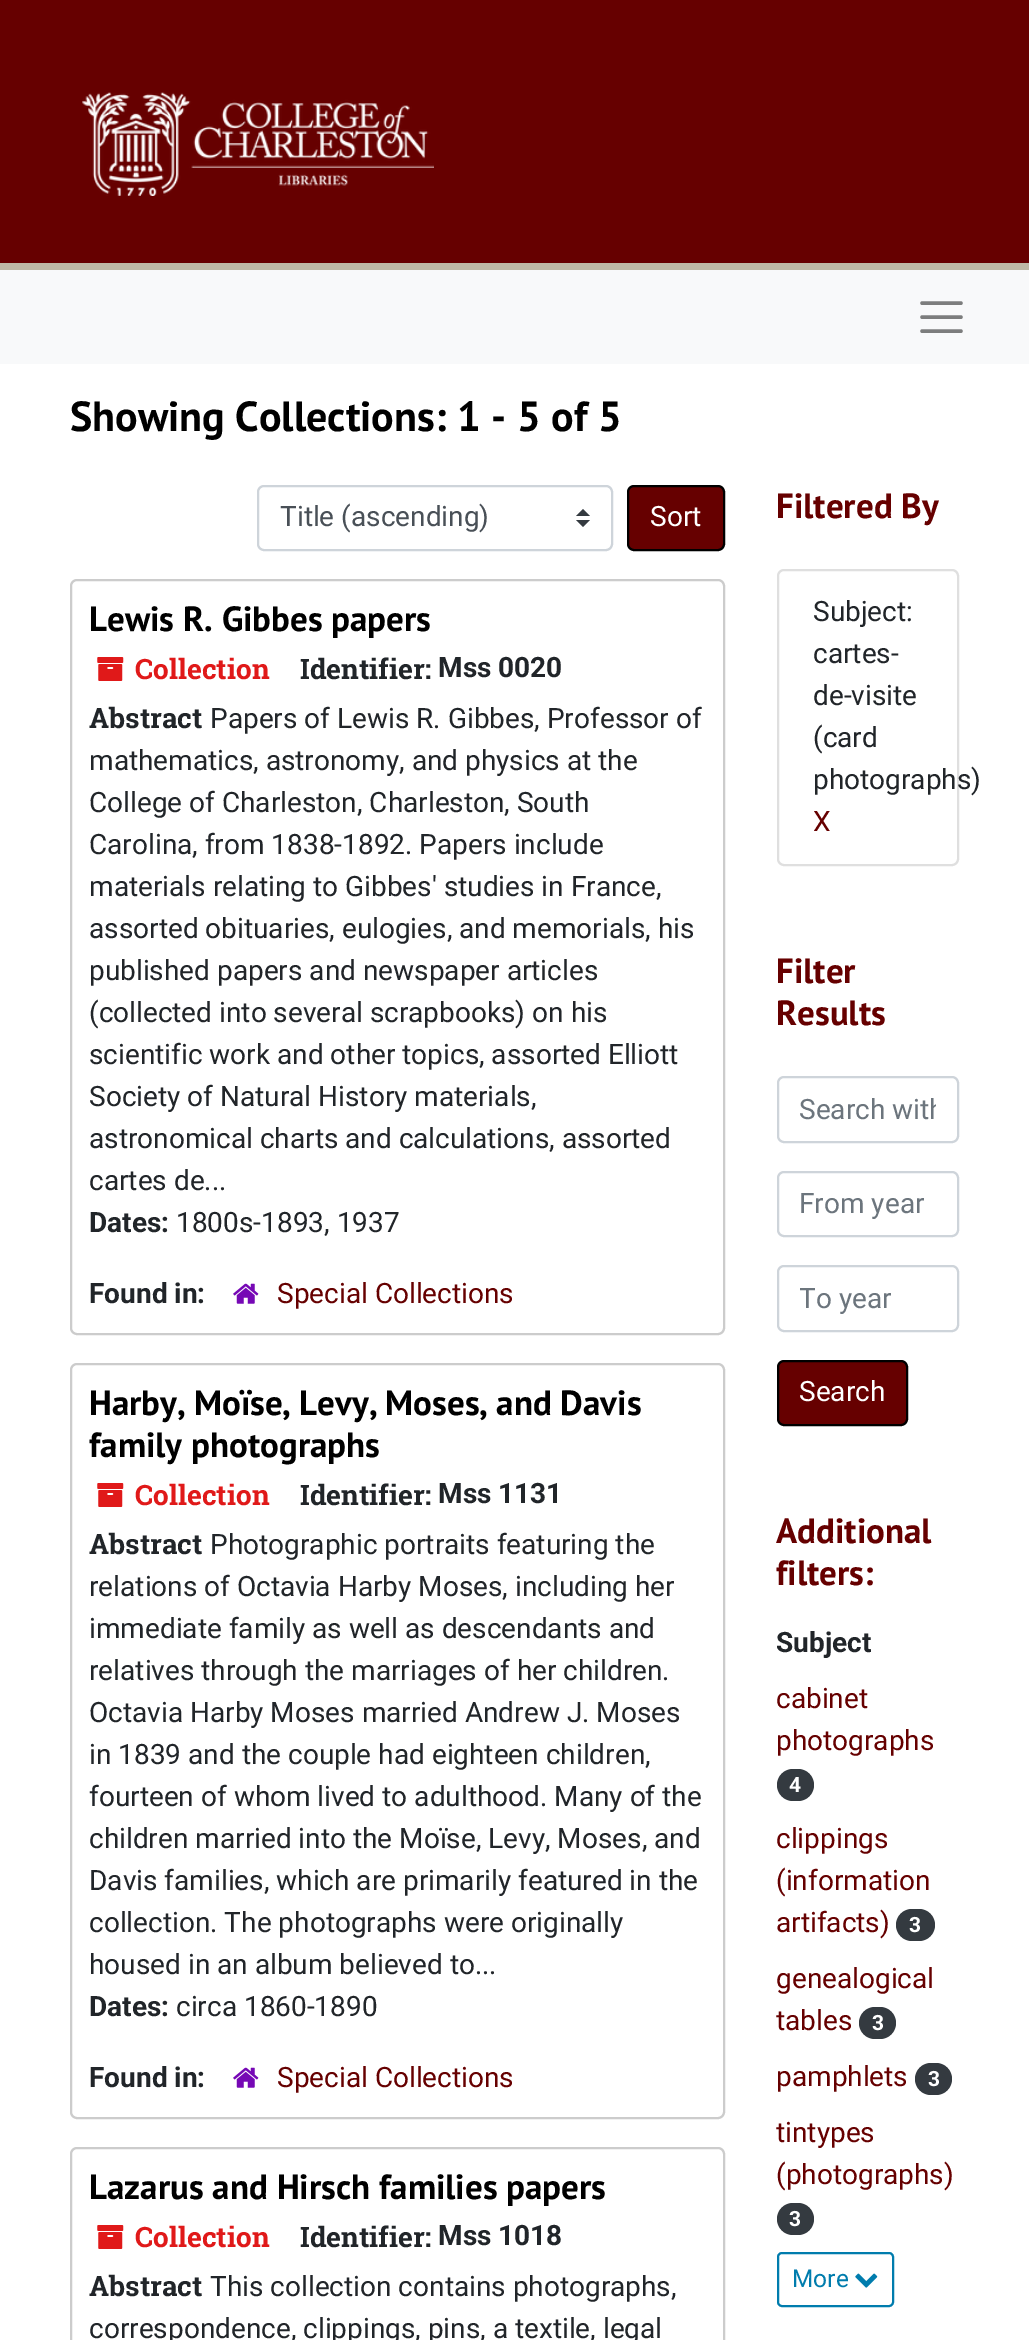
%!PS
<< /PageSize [1029 2340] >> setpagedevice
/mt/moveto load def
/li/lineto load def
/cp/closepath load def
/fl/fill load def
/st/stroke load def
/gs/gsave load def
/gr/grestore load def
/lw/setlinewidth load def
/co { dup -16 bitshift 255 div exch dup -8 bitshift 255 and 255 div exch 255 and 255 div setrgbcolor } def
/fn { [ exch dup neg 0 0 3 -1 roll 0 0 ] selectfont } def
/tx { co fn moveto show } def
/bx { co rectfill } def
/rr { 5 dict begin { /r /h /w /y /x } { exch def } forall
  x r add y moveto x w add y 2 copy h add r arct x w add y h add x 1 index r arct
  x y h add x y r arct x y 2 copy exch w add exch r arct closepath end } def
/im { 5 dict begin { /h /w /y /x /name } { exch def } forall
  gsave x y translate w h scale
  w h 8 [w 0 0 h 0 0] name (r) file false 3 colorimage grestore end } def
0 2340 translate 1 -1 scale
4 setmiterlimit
0 0 1029 2340 16#FFFFFF bx
0 0 1029 263 16#660000 bx
0 263 1029 7 16#BEB9A6 bx
(media/1.raw) 82 92 352 104 im
0 270 1029 94 16#F8F9FA bx
16#7C7D7D co
3.5 lw
1 setlinecap
922 303 mt 961 303 li 922 317 mt 961 317 li 922 331 mt 961 331 li st
16#343A40 co
583 509 mt 576 516 li 590 516 li cp 583 527 mt 576 520 li 590 520 li cp fl
16#CED4DA co
2 lw
0 setlinecap
258 486 354 64 6 rr st
16#660000 co
628 486 96 64 6 rr gs fl gr
16#000000 co
st
16#CCCCCC co
71 580 653 754 6 rr st
(media/2.raw) 97 657 27 24 im
(media/3.raw) 233 1283 26 21 im
71 1364 653 754 6 rr st
(media/2.raw) 97 1483 27 24 im
(media/3.raw) 233 2067 26 21 im
71 2148 653 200 6 rr st
(media/2.raw) 97 2225 27 24 im
16#DFDFDF co
778 570 180 295 6 rr st
16#CED4DA co
778 1077 180 65 6 rr st
778 1172 180 64 6 rr st
778 1266 180 65 6 rr st
16#660000 co
778 1361 129 64 6 rr gs fl gr
16#000000 co
st
16#343A40 co
777 1769 37 32 16 rr fl
896 1909 39 32 16 rr fl
859 2007 37 32 16 rr fl
915 2063 37 32 16 rr fl
777 2203 37 32 16 rr fl
16#007CAD co
778 2253 115 53 4 rr st
(media/4.raw) 855 2273 23 15 im
(Showing Collections: 1 - 5 of 5) 70 431 /PTSans-Bold 42 16#000000 tx
(Title \(ascending\)) 280 526 /Roboto-Regular 28 16#495057 tx
(Sort) 650 526 /Roboto-Regular 28 16#FFFFFF tx
(Lewis R. Gibbes papers) 89 631 /PTSans-Bold 35 16#000000 tx
(Collection) 135 679 /RobotoSlab-Bold 28 16#E01919 tx
(Identifier:) 300 679 /RobotoSlab-Bold 28 16#212529 tx
(Mss 0020) 438 677 /Roboto-Bold 28 16#212529 tx
(Abstract) 89 728 /RobotoSlab-Bold 28 16#212529 tx
(Papers of Lewis R. Gibbes, Professor of) 210 728 /Roboto-Regular 28 16#212529 tx
(mathematics, astronomy, and physics at the) 89 770 /Roboto-Regular 28 16#212529 tx
(College of Charleston, Charleston, South) 89 812 /Roboto-Regular 28 16#212529 tx
(Carolina, from 1838-1892. Papers include) 89 854 /Roboto-Regular 28 16#212529 tx
(materials relating to Gibbes' studies in France,) 89 896 /Roboto-Regular 28 16#212529 tx
(assorted obituaries, eulogies, and memorials, his) 89 938 /Roboto-Regular 28 16#212529 tx
(published papers and newspaper articles) 89 980 /Roboto-Regular 28 16#212529 tx
(\(collected into several scrapbooks\) on his) 89 1022 /Roboto-Regular 28 16#212529 tx
(scientific work and other topics, assorted Elliott) 89 1064 /Roboto-Regular 28 16#212529 tx
(Society of Natural History materials,) 89 1106 /Roboto-Regular 28 16#212529 tx
(astronomical charts and calculations, assorted) 89 1148 /Roboto-Regular 28 16#212529 tx
(cartes de...) 89 1190 /Roboto-Regular 28 16#212529 tx
(Dates:) 89 1232 /Roboto-Bold 28 16#212529 tx
(1800s-1893, 1937) 176 1232 /Roboto-Regular 28 16#212529 tx
(Found in:) 89 1303 /Roboto-Bold 28 16#212529 tx
(Special Collections) 277 1303 /Roboto-Regular 28 16#660000 tx
(Harby, Moïse, Levy, Moses, and Davis) 89 1415 /PTSans-Bold 35 16#000000 tx
(family photographs) 89 1457 /PTSans-Bold 35 16#000000 tx
(Collection) 135 1505 /RobotoSlab-Bold 28 16#E01919 tx
(Identifier:) 300 1505 /RobotoSlab-Bold 28 16#212529 tx
(Mss 1131) 438 1503 /Roboto-Bold 28 16#212529 tx
(Abstract) 89 1554 /RobotoSlab-Bold 28 16#212529 tx
(Photographic portraits featuring the) 210 1554 /Roboto-Regular 28 16#212529 tx
(relations of Octavia Harby Moses, including her) 89 1596 /Roboto-Regular 28 16#212529 tx
(immediate family as well as descendants and) 89 1638 /Roboto-Regular 28 16#212529 tx
(relatives through the marriages of her children.) 89 1680 /Roboto-Regular 28 16#212529 tx
(Octavia Harby Moses married Andrew J. Moses) 89 1722 /Roboto-Regular 28 16#212529 tx
(in 1839 and the couple had eighteen children,) 89 1764 /Roboto-Regular 28 16#212529 tx
(fourteen of whom lived to adulthood. Many of the) 89 1806 /Roboto-Regular 28 16#212529 tx
(children married into the Moïse, Levy, Moses, and) 89 1848 /Roboto-Regular 28 16#212529 tx
(Davis families, which are primarily featured in the) 89 1890 /Roboto-Regular 28 16#212529 tx
(collection. The photographs were originally) 89 1932 /Roboto-Regular 28 16#212529 tx
(housed in an album believed to...) 89 1974 /Roboto-Regular 28 16#212529 tx
(Dates:) 89 2016 /Roboto-Bold 28 16#212529 tx
(circa 1860-1890) 176 2016 /Roboto-Regular 28 16#212529 tx
(Found in:) 89 2087 /Roboto-Bold 28 16#212529 tx
(Special Collections) 277 2087 /Roboto-Regular 28 16#660000 tx
(Lazarus and Hirsch families papers) 89 2199 /PTSans-Bold 35 16#000000 tx
(Collection) 135 2247 /RobotoSlab-Bold 28 16#E01919 tx
(Identifier:) 300 2247 /RobotoSlab-Bold 28 16#212529 tx
(Mss 1018) 438 2245 /Roboto-Bold 28 16#212529 tx
(Abstract) 89 2296 /RobotoSlab-Bold 28 16#212529 tx
(This collection contains photographs,) 210 2296 /Roboto-Regular 28 16#212529 tx
(correspondence, clippings, pins, a textile, legal) 89 2338 /Roboto-Regular 28 16#212529 tx
(Filtered By) 776 518 /PTSans-Bold 35 16#660000 tx
(Subject:) 813 621 /Roboto-Regular 28 16#212529 tx
(cartes-) 813 663 /Roboto-Regular 28 16#212529 tx
(de-visite) 813 705 /Roboto-Regular 28 16#212529 tx
(\(card) 813 747 /Roboto-Regular 28 16#212529 tx
(photographs\)) 813 789 /Roboto-Regular 28 16#212529 tx
(X) 813 831 /Roboto-Regular 28 16#660000 tx
(Filter) 776 983 /PTSans-Bold 35 16#660000 tx
(Results) 776 1025 /PTSans-Bold 35 16#660000 tx
gs
800 1092 136 33 rectclip
(Search with) 799 1119 /Roboto-Regular 28 16#6C757D tx
gr
(From year) 799 1213 /Roboto-Regular 28 16#6C757D tx
gs
800 1281 136 33 rectclip
(To year) 799 1308 /Roboto-Regular 28 16#6C757D tx
gr
(Search) 799 1401 /Roboto-Regular 28 16#FFFFFF tx
(Additional) 776 1543 /PTSans-Bold 35 16#660000 tx
(filters:) 776 1585 /PTSans-Bold 35 16#660000 tx
(Subject) 776 1652 /Roboto-Bold 28 16#212529 tx
(cabinet) 776 1708 /Roboto-Regular 28 16#660000 tx
(photographs) 776 1750 /Roboto-Regular 28 16#660000 tx
(4) 789 1792 /Roboto-Bold 21 16#FFFFFF tx
(clippings) 776 1848 /Roboto-Regular 28 16#660000 tx
(\(information) 776 1890 /Roboto-Regular 28 16#660000 tx
(artifacts\)) 776 1932 /Roboto-Regular 28 16#660000 tx
(3) 909 1932 /Roboto-Bold 21 16#FFFFFF tx
(genealogical) 776 1988 /Roboto-Regular 28 16#660000 tx
(tables) 776 2030 /Roboto-Regular 28 16#660000 tx
(3) 872 2030 /Roboto-Bold 21 16#FFFFFF tx
(pamphlets) 776 2086 /Roboto-Regular 28 16#660000 tx
(3) 928 2086 /Roboto-Bold 21 16#FFFFFF tx
(tintypes) 776 2142 /Roboto-Regular 28 16#660000 tx
(\(photographs\)) 776 2184 /Roboto-Regular 28 16#660000 tx
(3) 789 2226 /Roboto-Bold 21 16#FFFFFF tx
(More) 792 2287 /Roboto-Regular 24.5 16#007CAD tx
showpage
